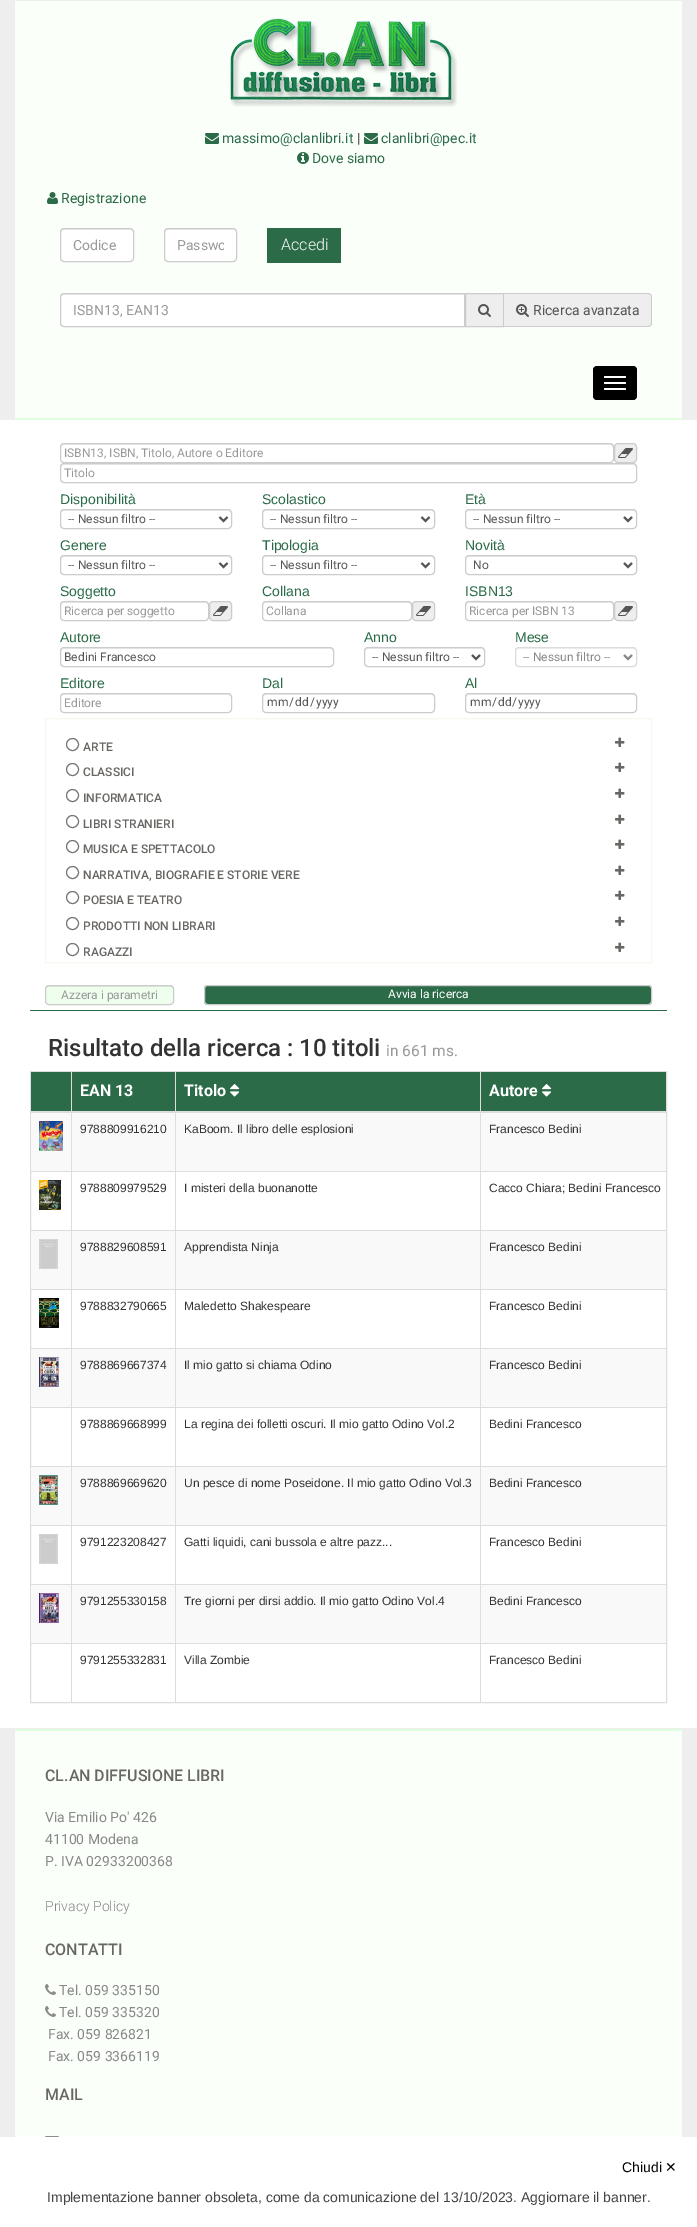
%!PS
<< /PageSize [697 2227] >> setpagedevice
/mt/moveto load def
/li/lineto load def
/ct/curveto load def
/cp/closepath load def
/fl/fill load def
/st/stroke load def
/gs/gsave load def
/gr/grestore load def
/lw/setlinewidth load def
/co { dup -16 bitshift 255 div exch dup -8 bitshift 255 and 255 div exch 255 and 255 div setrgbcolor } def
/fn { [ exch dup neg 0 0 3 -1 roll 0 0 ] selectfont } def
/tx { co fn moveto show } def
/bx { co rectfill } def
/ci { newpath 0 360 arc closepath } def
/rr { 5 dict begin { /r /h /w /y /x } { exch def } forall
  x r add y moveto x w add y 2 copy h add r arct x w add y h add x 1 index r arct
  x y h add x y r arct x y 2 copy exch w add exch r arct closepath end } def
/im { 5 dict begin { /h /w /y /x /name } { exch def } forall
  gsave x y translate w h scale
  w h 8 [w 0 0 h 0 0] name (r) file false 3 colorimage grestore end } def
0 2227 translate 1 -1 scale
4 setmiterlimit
0 0 697 2227 16#EEEEEE bx
15 1 667 417 16#FAFFFA bx
(media/1.raw) 230 18 227 89 im
(media/2.raw) 205 133 14 11 im
(media/2.raw) 364 133 14 11 im
(media/3.raw) 297 152 12 12 im
(media/4.raw) 47 192 11 12 im
16#FFFFFF co
60 228 74 34 4 rr fl
16#ECECEC co
64 230 mt 130 230 li 132 230 133 231 133 233 ct 133 226 123 229 119 229 ct 75 229 li 71 229 61 226 61 233 ct 61 231 62 230 64 230 ct cp fl
16#CCCCCC co
60.5 228.5 73 33 3.5 rr st
16#FFFFFF co
164 228 73 34 4 rr fl
16#ECECEC co
168 230 mt 233 230 li 235 230 236 231 236 233 ct 236 226 226 229 222 229 ct 179 229 li 175 229 165 226 165 233 ct 165 231 166 230 168 230 ct cp fl
16#CCCCCC co
164.5 228.5 72 33 3.5 rr st
267 228 74 35 16#2B6B48 bx
16#FFFFFF co
64 293 mt 465 293 li 465 327 li 64 327 li 62 327 60 325 60 323 ct 60 297 li 60 295 62 293 64 293 ct cp fl
16#ECECEC co
64 295 mt 464 295 li 464 294 li 64 294 li 62 294 61 296 61 298 ct 61 296 62 295 64 295 ct cp fl
16#CCCCCC co
64 293.5 mt 464.5 293.5 li 464.5 326.5 li 64 326.5 li 62 326.5 60.5 325 60.5 323 ct 60.5 297 li 60.5 295 62 293.5 64 293.5 ct cp st
16#EEEEEE co
465.5 293.5 mt 503.5 293.5 li 503.5 326.5 li 465.5 326.5 li cp gs fl gr
16#CCCCCC co
st
(media/5.raw) 478 304 13 13 im
16#EEEEEE co
504 293 mt 648 293 li 650 293 652 295 652 297 ct 652 323 li 652 325 650 327 648 327 ct 504 327 li cp fl
16#CCCCCC co
504 293 mt 648 293 li 650 293 652 295 652 297 ct 652 323 li 652 325 650 327 648 327 ct 504 327 li cp 504 294 mt 648 294 li 650 294 651 295 651 297 ct 651 323 li 651 325 650 326 648 326 ct 504 326 li cp eofill
(media/6.raw) 516 304 13 13 im
15 418 667 2 16#DDFFDD bx
16#000000 co
593 366 44 34 4 rr fl
16#FFFFFF co
604 376 22 2 1 rr fl
604 382 22 2 1 rr fl
604 388 22 2 1 rr fl
0 420 697 1308 16#FFFFFF bx
30 1010 637 1 16#2B6B48 bx
16#ECECEC co
64 445 mt 610 445 li 612 445 613 446 613 448 ct 613 447 li 613 445 612 444 610 444 ct 64 444 li 62 444 61 445 61 447 ct 61 448 li 61 446 62 445 64 445 ct cp fl
16#CCCCCC co
60.5 443.5 553 19 3.5 rr st
16#EEEEEE co
614.5 443.5 22 19 3.5 rr gs fl gr
16#CCCCCC co
st
(media/7.raw) 618 448 15 10 im
16#ECECEC co
64 465 mt 633 465 li 635 465 636 466 636 468 ct 636 467 li 636 465 635 464 633 464 ct 64 464 li 62 464 61 465 61 467 ct 61 468 li 61 466 62 465 64 465 ct cp fl
16#CCCCCC co
60.5 463.5 576 19 3.5 rr st
16#ECECEC co
64 511 mt 228 511 li 230 511 231 512 231 514 ct 231 513 li 231 511 230 510 228 510 ct 64 510 li 62 510 61 511 61 513 ct 61 514 li 61 512 62 511 64 511 ct cp fl
16#CCCCCC co
60.5 509.5 171 19 3.5 rr st
16#555555 co
2 lw
219.5 517 mt 223.5 521 li 227.5 517 li st
16#ECECEC co
266 511 mt 431 511 li 433 511 434 512 434 514 ct 434 513 li 434 511 433 510 431 510 ct 266 510 li 264 510 263 511 263 513 ct 263 514 li 263 512 264 511 266 511 ct cp fl
16#CCCCCC co
1 lw
262.5 509.5 172 19 3.5 rr st
16#555555 co
2 lw
421.5 517 mt 425.5 521 li 429.5 517 li st
16#ECECEC co
469 511 mt 633 511 li 635 511 636 512 636 514 ct 636 513 li 636 511 635 510 633 510 ct 469 510 li 467 510 466 511 466 513 ct 466 514 li 466 512 467 511 469 511 ct cp fl
16#CCCCCC co
1 lw
465.5 509.5 171 19 3.5 rr st
16#555555 co
2 lw
624 517 mt 628 521 li 632 517 li st
16#ECECEC co
64 557 mt 228 557 li 230 557 231 558 231 560 ct 231 559 li 231 557 230 556 228 556 ct 64 556 li 62 556 61 557 61 559 ct 61 560 li 61 558 62 557 64 557 ct cp fl
16#CCCCCC co
1 lw
60.5 555.5 171 19 3.5 rr st
16#555555 co
2 lw
219.5 563 mt 223.5 567 li 227.5 563 li st
16#ECECEC co
266 557 mt 431 557 li 433 557 434 558 434 560 ct 434 559 li 434 557 433 556 431 556 ct 266 556 li 264 556 263 557 263 559 ct 263 560 li 263 558 264 557 266 557 ct cp fl
16#CCCCCC co
1 lw
262.5 555.5 172 19 3.5 rr st
16#555555 co
2 lw
421.5 563 mt 425.5 567 li 429.5 563 li st
16#ECECEC co
469 557 mt 633 557 li 635 557 636 558 636 560 ct 636 559 li 636 557 635 556 633 556 ct 469 556 li 467 556 466 557 466 559 ct 466 560 li 466 558 467 557 469 557 ct cp fl
16#CCCCCC co
1 lw
465.5 555.5 171 19 3.5 rr st
16#555555 co
2 lw
624 563 mt 628 567 li 632 563 li st
16#ECECEC co
64 603 mt 205 603 li 207 603 208 604 208 606 ct 208 604 208 603 206 602 ct 88 602 li 80 602 61 597 61 606 ct 61 604 62 603 64 603 ct cp fl
16#CCCCCC co
1 lw
60.5 601.5 148 19 3.5 rr st
16#EEEEEE co
209.5 601.5 22 19 3.5 rr gs fl gr
16#CCCCCC co
st
(media/7.raw) 213 606 15 10 im
16#ECECEC co
266 603 mt 408 603 li 410 603 411 604 411 606 ct 411 604 411 603 409 602 ct 290 602 li 282 602 263 597 263 606 ct 263 604 264 603 266 603 ct cp fl
16#CCCCCC co
262.5 601.5 149 19 3.5 rr st
16#EEEEEE co
412.5 601.5 22 19 3.5 rr gs fl gr
16#CCCCCC co
st
(media/7.raw) 416 606 15 10 im
16#ECECEC co
469 603 mt 610 603 li 612 603 613 604 613 606 ct 613 604 613 603 611 602 ct 492 602 li 485 602 466 597 466 606 ct 466 604 467 603 469 603 ct cp fl
16#CCCCCC co
465.5 601.5 148 19 3.5 rr st
16#EEEEEE co
614.5 601.5 22 19 3.5 rr gs fl gr
16#CCCCCC co
st
(media/7.raw) 618 606 15 10 im
16#ECECEC co
64 649 mt 330 649 li 332 649 333 650 333 652 ct 333 651 li 333 649 332 648 330 648 ct 64 648 li 62 648 61 649 61 651 ct 61 652 li 61 650 62 649 64 649 ct cp fl
16#CCCCCC co
60.5 647.5 273 19 3.5 rr st
16#ECECEC co
368 649 mt 481 649 li 483 649 484 650 484 652 ct 484 650 483 648 481 648 ct 387 648 li 386 648 365 643 365 652 ct 365 650 366 649 368 649 ct cp fl
16#CCCCCC co
364.5 647.5 120 19 3.5 rr st
16#555555 co
2 lw
472 655 mt 476 659 li 480 655 li st
16#F2F2F2 co
519 649 mt 633 649 li 635 649 636 650 636 652 ct 636 650 635 648 633 648 ct 538 648 li 537 648 516 643 516 652 ct 516 650 517 649 519 649 ct cp fl
16#DBDBDB co
1 lw
515.5 647.5 121 19 3.5 rr st
16#888888 co
2 lw
624 655 mt 628 659 li 632 655 li st
16#ECECEC co
64 695 mt 228 695 li 230 695 231 696 231 698 ct 231 697 li 231 695 230 694 228 694 ct 64 694 li 62 694 61 695 61 697 ct 61 698 li 61 696 62 695 64 695 ct cp fl
16#CCCCCC co
1 lw
60.5 693.5 171 19 3.5 rr st
16#ECECEC co
266 695 mt 431 695 li 433 695 434 696 434 698 ct 434 697 li 434 695 433 694 431 694 ct 266 694 li 264 694 263 695 263 697 ct 263 698 li 263 696 264 695 266 695 ct cp fl
16#CCCCCC co
262.5 693.5 172 19 3.5 rr st
16#ECECEC co
469 695 mt 633 695 li 635 695 636 696 636 698 ct 636 697 li 636 695 635 694 633 694 ct 469 694 li 467 694 466 695 466 697 ct 466 698 li 466 696 467 695 469 695 ct cp fl
16#CCCCCC co
465.5 693.5 171 19 3.5 rr st
16#F7F7F0 co
45.5 718.5 606 244 rectstroke
16#767676 co
72.5 744.5 6 ci st
(media/8.raw) 615 737 10 10 im
72.5 769.5 6 ci st
(media/8.raw) 615 762 10 10 im
72.5 795.5 6 ci st
(media/8.raw) 615 788 10 10 im
72.5 821.5 6 ci st
(media/8.raw) 615 814 10 10 im
72.5 846.5 6 ci st
(media/8.raw) 615 839 10 10 im
72.5 872.5 6 ci st
(media/8.raw) 615 865 10 10 im
72.5 897.5 6 ci st
(media/8.raw) 615 890 10 10 im
72.5 923.5 6 ci st
(media/8.raw) 615 916 10 10 im
72.5 949.5 6 ci st
(media/8.raw) 615 942 10 10 im
16#EEFFEE co
45 985 129 20 4 rr fl
16#DCECDC co
49 987 mt 170 987 li 172 987 173 988 173 990 ct 173 989 li 173 987 172 986 170 986 ct 49 986 li 47 986 46 987 46 989 ct 46 990 li 46 988 47 987 49 987 ct cp fl
16#CCCCCC co
45.5 985.5 128 19 3.5 rr st
16#2B6B48 co
204 985 448 20 4 rr fl
16#286343 co
208 987 mt 648 987 li 650 987 651 988 651 990 ct 651 988 650 986 648 986 ct 207 986 li 205 988 li 205 990 li 205 988 206 987 208 987 ct cp fl
16#CCCCCC co
204.5 985.5 447 19 3.5 rr st
16#DDDDDD co
30.5 1071.5 636 631 rectstroke
31 1072 635 39 16#2B6B48 bx
(media/9.raw) 230 1084 10 13 im
480 1171 186 1 16#DDDDDD bx
480 1230 186 1 16#DDDDDD bx
480 1289 186 1 16#DDDDDD bx
480 1348 186 1 16#DDDDDD bx
480 1407 186 1 16#DDDDDD bx
480 1466 186 1 16#DDDDDD bx
480 1525 186 1 16#DDDDDD bx
480 1584 186 1 16#DDDDDD bx
480 1643 186 1 16#DDDDDD bx
480 1643 1 59 16#DDDDDD bx
175 1643 306 1 16#DDDDDD bx
480 1584 1 60 16#DDDDDD bx
175 1584 306 1 16#DDDDDD bx
480 1525 1 60 16#DDDDDD bx
175 1525 306 1 16#DDDDDD bx
480 1466 1 60 16#DDDDDD bx
175 1466 306 1 16#DDDDDD bx
480 1407 1 60 16#DDDDDD bx
175 1407 306 1 16#DDDDDD bx
480 1348 1 60 16#DDDDDD bx
175 1348 306 1 16#DDDDDD bx
480 1289 1 60 16#DDDDDD bx
175 1289 306 1 16#DDDDDD bx
480 1230 1 60 16#DDDDDD bx
175 1230 306 1 16#DDDDDD bx
480 1171 1 60 16#DDDDDD bx
175 1171 306 1 16#DDDDDD bx
175 1643 1 59 16#DDDDDD bx
71 1643 105 1 16#DDDDDD bx
175 1584 1 60 16#DDDDDD bx
71 1584 105 1 16#DDDDDD bx
175 1525 1 60 16#DDDDDD bx
71 1525 105 1 16#DDDDDD bx
175 1466 1 60 16#DDDDDD bx
71 1466 105 1 16#DDDDDD bx
175 1407 1 60 16#DDDDDD bx
71 1407 105 1 16#DDDDDD bx
175 1348 1 60 16#DDDDDD bx
71 1348 105 1 16#DDDDDD bx
175 1289 1 60 16#DDDDDD bx
71 1289 105 1 16#DDDDDD bx
175 1230 1 60 16#DDDDDD bx
71 1230 105 1 16#DDDDDD bx
175 1171 1 60 16#DDDDDD bx
71 1171 105 1 16#DDDDDD bx
71 1643 1 59 16#DDDDDD bx
31 1643 41 1 16#DDDDDD bx
71 1584 1 60 16#DDDDDD bx
31 1584 41 1 16#DDDDDD bx
71 1525 1 60 16#DDDDDD bx
31 1525 41 1 16#DDDDDD bx
71 1466 1 60 16#DDDDDD bx
31 1466 41 1 16#DDDDDD bx
71 1407 1 60 16#DDDDDD bx
31 1407 41 1 16#DDDDDD bx
71 1348 1 60 16#DDDDDD bx
31 1348 41 1 16#DDDDDD bx
71 1289 1 60 16#DDDDDD bx
31 1289 41 1 16#DDDDDD bx
71 1230 1 60 16#DDDDDD bx
31 1230 41 1 16#DDDDDD bx
71 1171 1 60 16#DDDDDD bx
31 1171 41 1 16#DDDDDD bx
71 1072 1 100 16#DDDDDD bx
175 1072 1 100 16#DDDDDD bx
480 1072 1 100 16#DDDDDD bx
31 1111 635 2 16#DDDDDD bx
(media/9.raw) 542 1084 10 13 im
31 1113 40 58 16#F9F9F9 bx
(media/10.raw) 39 1121 24 30 im
72 1113 103 58 16#F9F9F9 bx
176 1113 304 58 16#F9F9F9 bx
481 1113 185 58 16#F9F9F9 bx
(media/11.raw) 39 1180 22 30 im
31 1231 40 58 16#F9F9F9 bx
(media/12.raw) 39 1239 19 30 im
72 1231 103 58 16#F9F9F9 bx
176 1231 304 58 16#F9F9F9 bx
481 1231 185 58 16#F9F9F9 bx
(media/13.raw) 39 1298 20 30 im
31 1349 40 58 16#F9F9F9 bx
(media/14.raw) 39 1357 20 30 im
72 1349 103 58 16#F9F9F9 bx
176 1349 304 58 16#F9F9F9 bx
481 1349 185 58 16#F9F9F9 bx
31 1467 40 58 16#F9F9F9 bx
(media/15.raw) 39 1475 19 30 im
72 1467 103 58 16#F9F9F9 bx
176 1467 304 58 16#F9F9F9 bx
481 1467 185 58 16#F9F9F9 bx
(media/12.raw) 39 1534 19 30 im
31 1585 40 58 16#F9F9F9 bx
(media/16.raw) 39 1593 20 30 im
72 1585 103 58 16#F9F9F9 bx
176 1585 304 58 16#F9F9F9 bx
481 1585 185 58 16#F9F9F9 bx
15 1731 667 406 16#FAFFFA bx
15 1729 667 2 16#DDFFDD bx
(media/17.raw) 45 1984 11 11 im
(media/17.raw) 45 2006 11 11 im
(media/18.raw) 45 2136 14 1 im
0 2137 697 90 16#FFFFFF bx
(massimo@clanlibri.it) 222 143 /Roboto-Regular 14 16#2B6B48 tx
(|) 357 143 /Roboto-Regular 14 16#333333 tx
(clanlibri@pec.it) 381 143 /Roboto-Regular 14 16#2B6B48 tx
(Dove siamo) 312 163 /Roboto-Regular 14 16#2B6B48 tx
(Registrazione) 61 203 /Roboto-Regular 14 16#2B6B48 tx
(Codice) 73 250 /Roboto-Regular 14 16#999999 tx
gs
177 237 47 16 rectclip
(Passwo) 177 250 /Roboto-Regular 14 16#999999 tx
gr
(Accedi) 281 250 /Roboto-Light 16 16#FFFFFF tx
(ISBN13, EAN13) 73 315 /Roboto-Regular 14 16#999999 tx
(Ricerca avanzata) 533 315 /Roboto-Regular 14 16#555555 tx
(ISBN13, ISBN, Titolo, Autore o Editore) 64 457 /Roboto-Regular 12 16#999999 tx
(Titolo) 64 477 /Roboto-Regular 12 16#999999 tx
(Disponibilità) 60 504 /LiberationSans-Regular 14 16#2B6B48 tx
(-- Nessun filtro --) 68 523 /Roboto-Regular 12 16#555555 tx
(Scolastico) 262 504 /LiberationSans-Regular 14 16#2B6B48 tx
(-- Nessun filtro --) 270 523 /Roboto-Regular 12 16#555555 tx
(Età) 465 504 /LiberationSans-Regular 14 16#2B6B48 tx
(-- Nessun filtro --) 473 523 /Roboto-Regular 12 16#555555 tx
(Genere) 60 550 /LiberationSans-Regular 14 16#2B6B48 tx
(-- Nessun filtro --) 68 569 /Roboto-Regular 12 16#555555 tx
(Tipologia) 262 550 /LiberationSans-Regular 14 16#2B6B48 tx
(-- Nessun filtro --) 270 569 /Roboto-Regular 12 16#555555 tx
(Novità) 465 550 /LiberationSans-Regular 14 16#2B6B48 tx
(No) 473 569 /Roboto-Regular 12 16#555555 tx
(Soggetto) 60 596 /LiberationSans-Regular 14 16#2B6B48 tx
(Ricerca per soggetto) 64 615 /Roboto-Regular 12 16#999999 tx
(Collana) 262 596 /LiberationSans-Regular 14 16#2B6B48 tx
(Collana) 266 615 /Roboto-Regular 12 16#999999 tx
(ISBN13) 465 596 /LiberationSans-Regular 14 16#2B6B48 tx
(Ricerca per ISBN 13) 469 615 /Roboto-Regular 12 16#999999 tx
(Autore) 60 642 /LiberationSans-Regular 14 16#2B6B48 tx
(Bedini Francesco) 64 661 /Roboto-Regular 12 16#555555 tx
(Anno) 364 642 /LiberationSans-Regular 14 16#2B6B48 tx
(-- Nessun filtro --) 372 661 /Roboto-Regular 12 16#555555 tx
(Mese) 515 642 /LiberationSans-Regular 14 16#2B6B48 tx
(-- Nessun filtro --) 523 661 /Roboto-Regular 12 16#888888 tx
(Editore) 60 688 /LiberationSans-Regular 14 16#2B6B48 tx
(Editore) 64 707 /Roboto-Regular 12 16#999999 tx
(Dal) 262 688 /LiberationSans-Regular 14 16#2B6B48 tx
(mm) 267 706 /Roboto-Regular 12 16#555555 tx
(/) 289 706 /Roboto-Regular 12 16#555555 tx
(dd) 295 706 /Roboto-Regular 12 16#555555 tx
(/) 310 706 /Roboto-Regular 12 16#555555 tx
(yyyy) 316 706 /Roboto-Regular 12 16#555555 tx
(Al) 465 688 /LiberationSans-Regular 14 16#2B6B48 tx
(mm) 470 706 /Roboto-Regular 12 16#555555 tx
(/) 492 706 /Roboto-Regular 12 16#555555 tx
(dd) 498 706 /Roboto-Regular 12 16#555555 tx
(/) 512 706 /Roboto-Regular 12 16#555555 tx
(yyyy) 518 706 /Roboto-Regular 12 16#555555 tx
(ARTE) 83 751 /Roboto-Medium 12 16#696763 tx
(CLASSICI) 83 776 /Roboto-Medium 12 16#696763 tx
(INFORMATICA) 83 802 /Roboto-Medium 12 16#696763 tx
(LIBRI STRANIERI) 83 828 /Roboto-Medium 12 16#696763 tx
(MUSICA E SPETTACOLO) 83 853 /Roboto-Medium 12 16#696763 tx
(NARRATIVA, BIOGRAFIE E STORIE VERE) 83 879 /Roboto-Medium 12 16#696763 tx
(POESIA E TEATRO) 83 904 /Roboto-Medium 12 16#696763 tx
(PRODOTTI NON LIBRARI) 83 930 /Roboto-Medium 12 16#696763 tx
(RAGAZZI) 83 956 /Roboto-Medium 12 16#696763 tx
(Azzera i parametri) 61 999 /Roboto-Regular 12 16#999999 tx
(Avvia la ricerca) 388 998 /Roboto-Regular 12 16#FFFFFF tx
(Risultato della ricerca : 10 titoli) 48 1056 /Roboto-Medium 24 16#333333 tx
(in 661 ms.) 386 1056 /Roboto-Regular 15.5 16#999999 tx
(EAN 13) 80 1096 /Roboto-Bold 16 16#FFFFFF tx
(Titolo) 184 1096 /Roboto-Bold 16 16#FFFFFF tx
(Autore) 489 1096 /Roboto-Bold 16 16#FFFFFF tx
(9788809916210) 80 1133 /LiberationSans-Regular 12 16#333333 tx
(KaBoom. Il libro delle esplosioni) 184 1133 /LiberationSans-Regular 12 16#333333 tx
(Francesco Bedini) 489 1133 /LiberationSans-Regular 12 16#333333 tx
(9788809979529) 80 1192 /LiberationSans-Regular 12 16#333333 tx
(I misteri della buonanotte) 184 1192 /LiberationSans-Regular 12 16#333333 tx
(Cacco Chiara; Bedini Francesco) 489 1192 /LiberationSans-Regular 12 16#333333 tx
(9788829608591) 80 1251 /LiberationSans-Regular 12 16#333333 tx
(Apprendista Ninja) 184 1251 /LiberationSans-Regular 12 16#333333 tx
(Francesco Bedini) 489 1251 /LiberationSans-Regular 12 16#333333 tx
(9788832790665) 80 1310 /LiberationSans-Regular 12 16#333333 tx
(Maledetto Shakespeare) 184 1310 /LiberationSans-Regular 12 16#333333 tx
(Francesco Bedini) 489 1310 /LiberationSans-Regular 12 16#333333 tx
(9788869667374) 80 1369 /LiberationSans-Regular 12 16#333333 tx
(Il mio gatto si chiama Odino) 184 1369 /LiberationSans-Regular 12 16#333333 tx
(Francesco Bedini) 489 1369 /LiberationSans-Regular 12 16#333333 tx
(9788869668999) 80 1428 /LiberationSans-Regular 12 16#333333 tx
(La regina dei folletti oscuri. Il mio gatto Odino Vol.2) 184 1428 /LiberationSans-Regular 12 16#333333 tx
(Bedini Francesco) 489 1428 /LiberationSans-Regular 12 16#333333 tx
(9788869669620) 80 1487 /LiberationSans-Regular 12 16#333333 tx
(Un pesce di nome Poseidone. Il mio gatto Odino Vol.3) 184 1487 /LiberationSans-Regular 12 16#333333 tx
(Bedini Francesco) 489 1487 /LiberationSans-Regular 12 16#333333 tx
(9791223208427) 80 1546 /LiberationSans-Regular 12 16#333333 tx
(Gatti liquidi, cani bussola e altre pazz...) 184 1546 /LiberationSans-Regular 12 16#333333 tx
(Francesco Bedini) 489 1546 /LiberationSans-Regular 12 16#333333 tx
(9791255330158) 80 1605 /LiberationSans-Regular 12 16#333333 tx
(Tre giorni per dirsi addio. Il mio gatto Odino Vol.4) 184 1605 /LiberationSans-Regular 12 16#333333 tx
(Bedini Francesco) 489 1605 /LiberationSans-Regular 12 16#333333 tx
(9791255332831) 80 1664 /LiberationSans-Regular 12 16#333333 tx
(Villa Zombie) 184 1664 /LiberationSans-Regular 12 16#333333 tx
(Francesco Bedini) 489 1664 /LiberationSans-Regular 12 16#333333 tx
(CL.AN DIFFUSIONE LIBRI) 45 1781 /Roboto-Medium 16 16#696763 tx
(Via Emilio Po' 426) 45 1822 /Roboto-Regular 14 16#888888 tx
(41100 Modena) 45 1844 /Roboto-Regular 14 16#888888 tx
(P. IVA 02933200368) 45 1866 /Roboto-Regular 14 16#888888 tx
(Privacy Policy) 45 1911 /Roboto-Light 14 16#888888 tx
(CONTATTI) 45 1955 /Roboto-Medium 16 16#696763 tx
(Tel. 059 335150) 59 1995 /Roboto-Regular 14 16#888888 tx
(Tel. 059 335320) 59 2017 /Roboto-Regular 14 16#888888 tx
(Fax. 059 826821) 48 2039 /Roboto-Regular 14 16#888888 tx
(Fax. 059 3366119) 48 2061 /Roboto-Regular 14 16#888888 tx
(MAIL) 45 2100 /Roboto-Medium 16 16#696763 tx
(Chiudi) 622 2172 /LiberationSans-Regular 14 16#000000 tx
(✕) 665 2172 /DejaVuSans-Regular 14 16#000000 tx
(Implementazione banner obsoleta, come da comunicazione del 13/10/2023. Aggiornare il banner.) 47 2202 /LiberationSans-Regular 14 16#444444 tx
showpage
